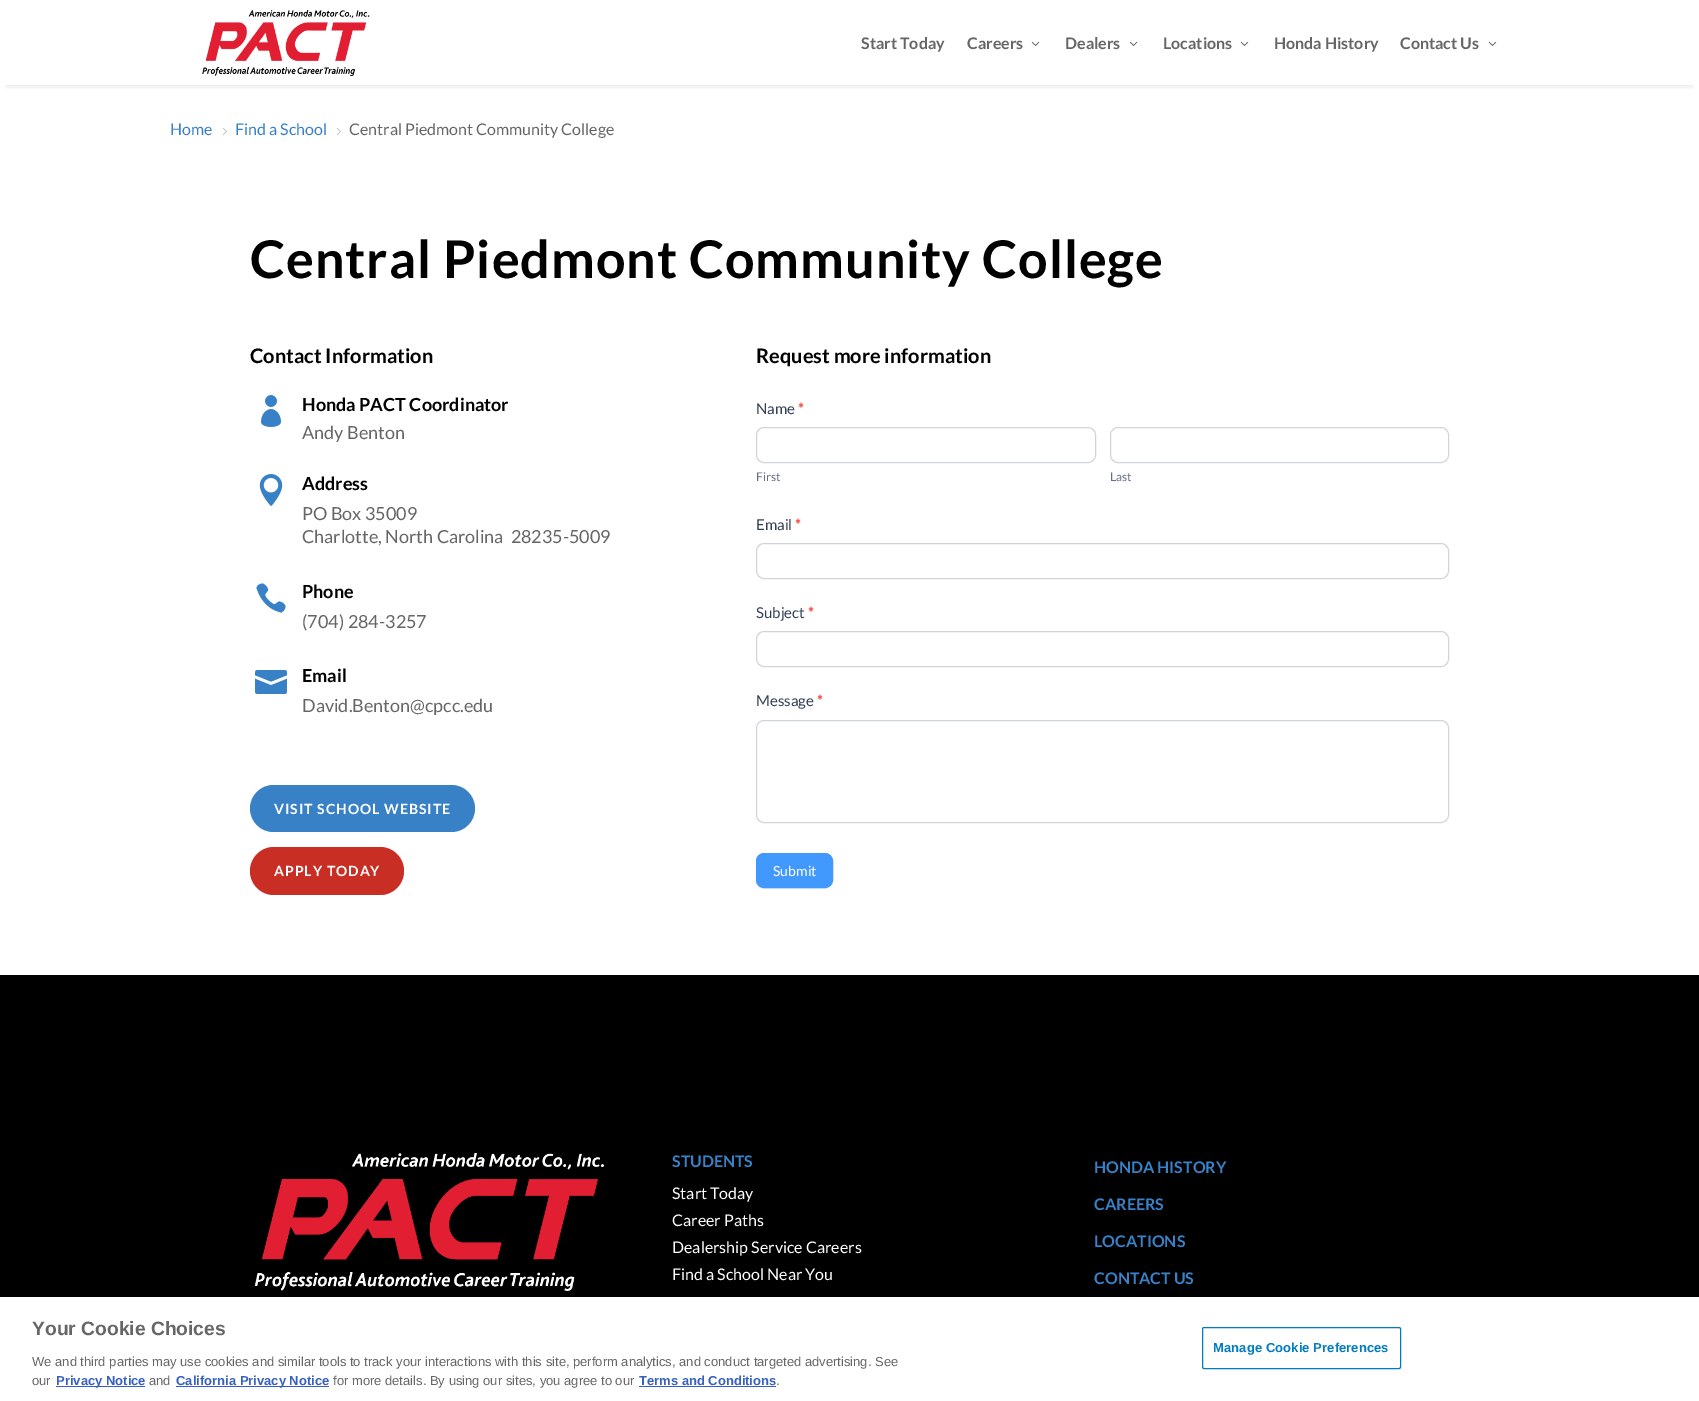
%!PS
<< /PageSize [1699 1401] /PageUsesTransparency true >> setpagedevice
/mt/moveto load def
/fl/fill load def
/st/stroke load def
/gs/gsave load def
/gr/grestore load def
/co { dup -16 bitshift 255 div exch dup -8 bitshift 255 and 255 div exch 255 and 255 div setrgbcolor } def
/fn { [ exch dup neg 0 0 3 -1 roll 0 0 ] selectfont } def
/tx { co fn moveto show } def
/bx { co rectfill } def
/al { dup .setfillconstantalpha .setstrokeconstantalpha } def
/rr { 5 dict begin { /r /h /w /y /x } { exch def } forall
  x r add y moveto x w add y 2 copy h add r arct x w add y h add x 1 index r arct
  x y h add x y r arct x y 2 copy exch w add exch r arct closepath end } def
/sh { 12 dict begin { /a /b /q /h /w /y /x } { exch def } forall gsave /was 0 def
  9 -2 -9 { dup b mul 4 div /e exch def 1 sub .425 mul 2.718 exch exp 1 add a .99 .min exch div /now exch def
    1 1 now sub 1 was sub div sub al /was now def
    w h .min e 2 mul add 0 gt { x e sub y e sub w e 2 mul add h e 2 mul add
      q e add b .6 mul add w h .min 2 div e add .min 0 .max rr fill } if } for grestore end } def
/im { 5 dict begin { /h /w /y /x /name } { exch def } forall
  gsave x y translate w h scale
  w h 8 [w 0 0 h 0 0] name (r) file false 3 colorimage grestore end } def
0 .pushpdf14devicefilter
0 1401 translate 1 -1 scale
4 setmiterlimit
0 0 1699 1401 16#FFFFFF bx
gs
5 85 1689 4 rectclip
16#000000 co
8 13 1683 69 0 5 .3 sh
gr
(media/1.raw) 202 10 168 66 im
(media/2.raw) 1031 41 9 5 im
(media/2.raw) 1129 41 9 5 im
(media/2.raw) 1240 41 9 5 im
(media/2.raw) 1488 41 9 5 im
(media/3.raw) 222 127 5 9 im
(media/3.raw) 336 127 5 9 im
(media/4.raw) 261 395 20 32 im
(media/5.raw) 259 474 24 32 im
(media/6.raw) 256 583 30 30 im
(media/7.raw) 255 670 32 24 im
16#3881C6 co
250 785 225 47 23.5 rr fl
16#C82E23 co
250 847 154 48 24 rr fl
16#D0D5DD co
756.5 427.5 339 35 7.5 rr st
1110.5 427.5 338 35 7.5 rr st
756.5 543.5 692 35 7.5 rr st
756.5 631.5 692 35 7.5 rr st
756.5 720.5 692 102 7.5 rr st
16#EEEEEE co
756 854 77 35 8 .5 1 sh
16#4199FD co
756.5 853.5 76 34 7.5 rr gs fl gr
st
0 975 1699 322 16#000000 bx
(media/8.raw) 255 1153 349 138 im
0 1297 1699 104 0 9 .2 sh
0 1297 1699 104 16#FFFFFF bx
56 1386 89 1 16#3860BE bx
176 1386 153 1 16#3860BE bx
639 1386 137 1 16#3860BE bx
16#007CC0 co
1202.5 1327.5 198 41 1.5 rr st
(Start Today) 861 49 /Lato-Bold 16 16#666666 tx
(Careers) 967 49 /Lato-Bold 16 16#666666 tx
(Dealers) 1065 49 /Lato-Bold 16 16#666666 tx
(Locations) 1163 49 /Lato-Bold 16 16#666666 tx
(Honda History) 1274 49 /Lato-Bold 16 16#666666 tx
(Contact Us) 1400 49 /Lato-Bold 16 16#666666 tx
(Home) 170 135 /Lato-Regular 16 16#3881C6 tx
(Find a School) 235 135 /Lato-Regular 16 16#3881C6 tx
(Central Piedmont Community College) 349 135 /Lato-Regular 16 16#666666 tx
/Lato-Bold 52 fn
16#000000 co
250 278 mt 1 0 (Central Piedmont Community College) ashow
(Contact Information) 250 363 /Lato-Bold 20 16#000000 tx
(Honda PACT Coordinator) 302 411 /Lato-Bold 18 16#000000 tx
(Andy Benton) 302 439 /Lato-Regular 18 16#666666 tx
(Address) 302 490 /Lato-Bold 18 16#000000 tx
(PO Box 35009) 302 520 /Lato-Regular 18 16#666666 tx
(Charlotte, North Carolina  28235-5009) 302 543 /Lato-Regular 18 16#666666 tx
(Phone) 302 598 /Lato-Bold 18 16#000000 tx
(\(704\) 284-3257) 302 628 /Lato-Regular 18 16#666666 tx
(Email) 302 682 /Lato-Bold 18 16#000000 tx
(David.Benton@cpcc.edu) 302 712 /Lato-Regular 18 16#666666 tx
/Lato-Bold 14 fn
16#FFFFFF co
274 814 mt 1 0 (VISIT SCHOOL WEBSITE) ashow
274 876 mt 1 0 (APPLY TODAY) ashow
(Request more information) 756 363 /Lato-Bold 20 16#000000 tx
(Name) 756 414 /Lato-Regular 15 16#344054 tx
(*) 798 414 /Lato-Bold 15 16#F04438 tx
(First) 756 481 /Lato-Regular 12 16#667085 tx
(Last) 1110 481 /Lato-Regular 12 16#667085 tx
(Email) 756 530 /Lato-Regular 15 16#344054 tx
(*) 795 530 /Lato-Bold 15 16#F04438 tx
(Subject) 756 618 /Lato-Regular 15 16#344054 tx
(*) 808 618 /Lato-Bold 15 16#F04438 tx
(Message) 756 706 /Lato-Regular 15 16#344054 tx
(*) 817 706 /Lato-Bold 15 16#F04438 tx
(Submit) 773 876 /Lato-Regular 14 16#FFFFFF tx
(STUDENTS) 672 1167 /Lato-Bold 16 16#3881C6 tx
(Start Today) 672 1199 /Lato-Regular 16 16#FFFFFF tx
(Career Paths) 672 1226 /Lato-Regular 16 16#FFFFFF tx
(Dealership Service Careers) 672 1253 /Lato-Regular 16 16#FFFFFF tx
(Find a School Near You) 672 1280 /Lato-Regular 16 16#FFFFFF tx
(HONDA HISTORY) 1094 1173 /Lato-Bold 16 16#3881C6 tx
(CAREERS) 1094 1210 /Lato-Bold 16 16#3881C6 tx
(LOCATIONS) 1094 1247 /Lato-Bold 16 16#3881C6 tx
(CONTACT US) 1094 1284 /Lato-Bold 16 16#3881C6 tx
(Your Cookie Choices) 32 1335 /LiberationSans-Bold 19.25 16#666666 tx
(We and third parties may use cookies and similar tools to track your interactions with this site, perform analytics, and conduct targeted advertising. See) 32 1366 /LiberationSans-Regular 13 16#666666 tx
(our) 32 1385 /LiberationSans-Regular 13 16#666666 tx
(Privacy Notice) 56 1385 /LiberationSans-Bold 13 16#3860BE tx
(and) 149 1385 /LiberationSans-Regular 13 16#666666 tx
(California Privacy Notice) 176 1385 /LiberationSans-Bold 13 16#3860BE tx
(for more details. By using our sites, you agree to our) 333 1385 /LiberationSans-Regular 13 16#666666 tx
(Terms and Conditions) 639 1385 /LiberationSans-Bold 13 16#3860BE tx
(.) 776 1385 /LiberationSans-Regular 13 16#666666 tx
/LiberationSans-Bold 13 fn
16#007CC0 co
1213 1352 mt .1 0 (Manage Cookie Preferences) ashow
.poppdf14devicefilter showpage
